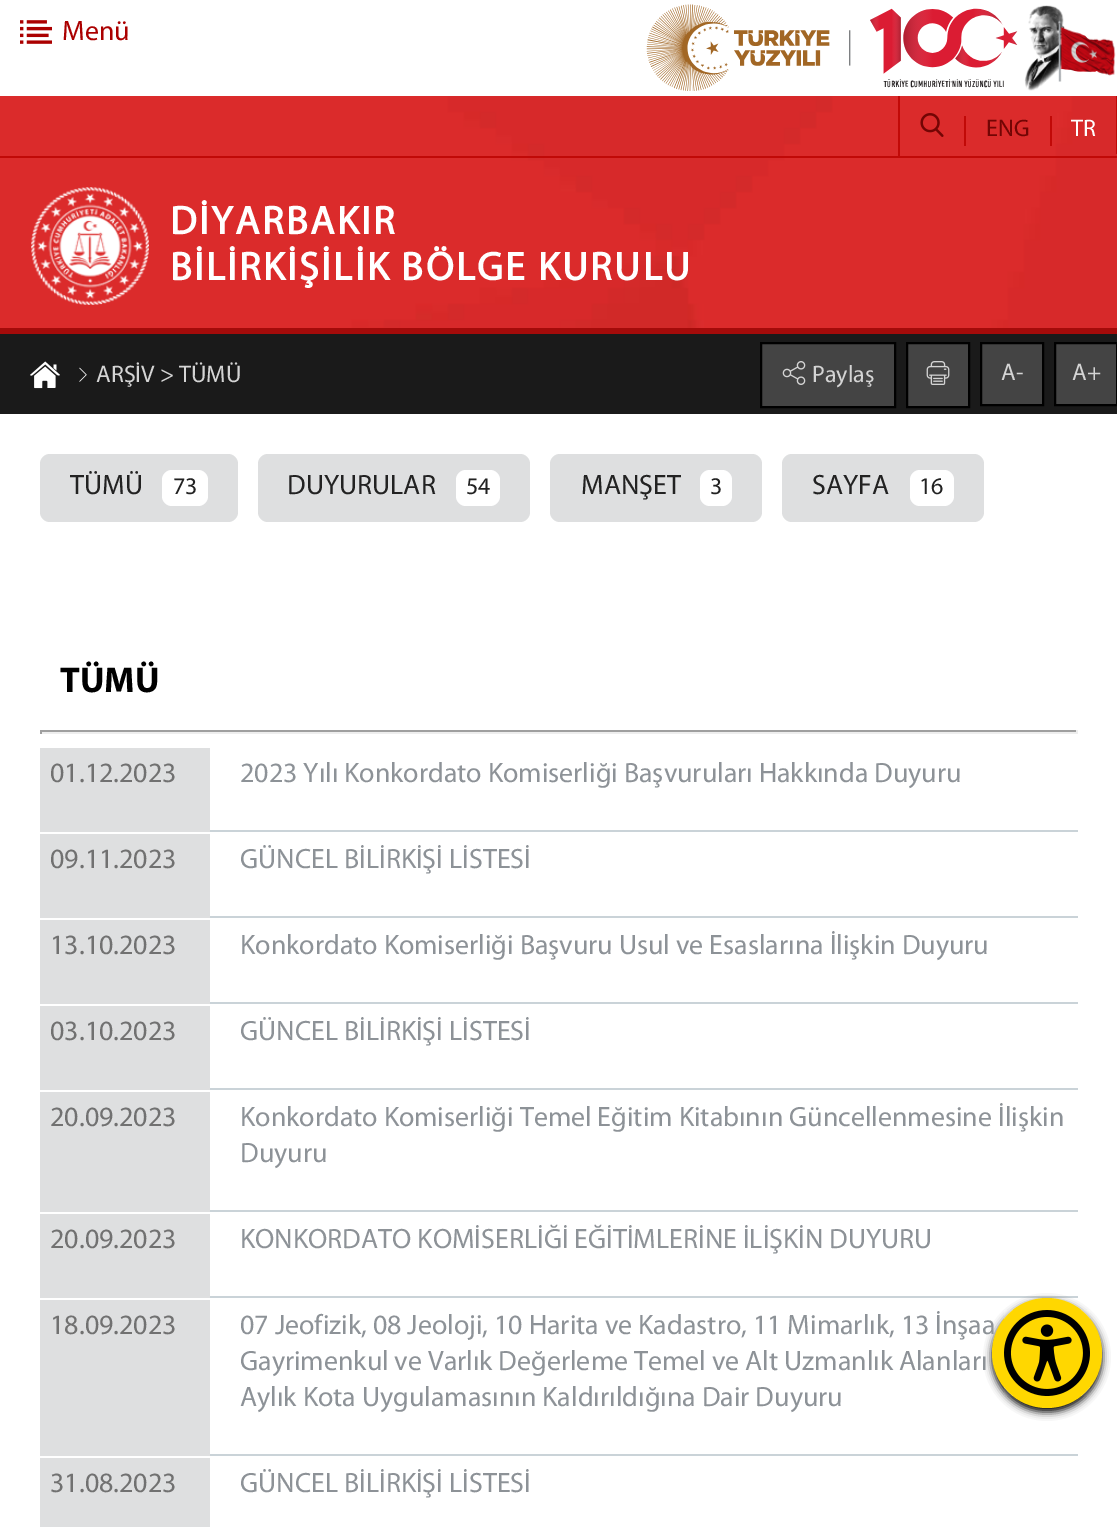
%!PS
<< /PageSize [1117 1527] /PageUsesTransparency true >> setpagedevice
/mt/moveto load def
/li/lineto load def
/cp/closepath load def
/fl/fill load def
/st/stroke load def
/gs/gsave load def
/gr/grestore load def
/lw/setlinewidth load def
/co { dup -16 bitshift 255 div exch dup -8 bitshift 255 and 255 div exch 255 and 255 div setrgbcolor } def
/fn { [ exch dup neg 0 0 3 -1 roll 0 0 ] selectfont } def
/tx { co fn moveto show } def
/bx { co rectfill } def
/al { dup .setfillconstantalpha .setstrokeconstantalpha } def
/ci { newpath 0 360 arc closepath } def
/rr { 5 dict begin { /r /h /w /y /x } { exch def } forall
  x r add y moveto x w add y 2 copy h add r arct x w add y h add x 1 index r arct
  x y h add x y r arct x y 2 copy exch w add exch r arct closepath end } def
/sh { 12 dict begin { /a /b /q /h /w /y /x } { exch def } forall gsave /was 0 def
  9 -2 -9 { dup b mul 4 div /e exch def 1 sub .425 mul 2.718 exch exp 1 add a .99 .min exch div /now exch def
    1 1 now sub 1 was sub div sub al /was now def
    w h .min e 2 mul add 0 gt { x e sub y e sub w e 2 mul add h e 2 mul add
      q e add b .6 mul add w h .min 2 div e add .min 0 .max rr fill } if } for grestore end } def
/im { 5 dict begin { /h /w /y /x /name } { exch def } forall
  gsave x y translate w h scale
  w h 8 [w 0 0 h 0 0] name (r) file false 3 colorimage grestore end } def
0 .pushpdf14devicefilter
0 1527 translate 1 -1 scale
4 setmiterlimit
0 0 1117 1527 16#FFFFFF bx
(media/1.raw) 0 96 1117 232 im
0 328 1117 6 16#A40B0A bx
(media/2.raw) 20 20 32 24 im
(media/3.raw) 646 4 372 87 im
(media/4.raw) 1024 5 92 86 im
0 156 1117 2 16#C10907 bx
898 96 2 62 16#C10907 bx
(media/5.raw) 920 113 24 24 im
1116 96 1 58 16#C10907 bx
964 116 2 30 16#C10907 bx
1050 116 2 30 16#C10907 bx
(media/6.raw) 31 187 118 118 im
0 334 1117 80 16#1A1A1A bx
(media/7.raw) 30 361 30 28 im
(media/8.raw) 79 367 8 15 im
16#444444 co
761 343 mt 895 343 li 895 407 li 761 407 li cp gs fl gr
16#000000 co
2 lw
st
(media/9.raw) 782 361 24 24 im
16#444444 co
907 343 mt 969 343 li 969 407 li 907 407 li cp gs fl gr
16#000000 co
st
(media/10.raw) 926 361 24 24 im
16#444444 co
981 343 mt 1043 343 li 1043 405 li 981 405 li cp gs fl gr
16#000000 co
st
16#444444 co
1055 343 mt 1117 343 li 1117 405 li 1055 405 li cp gs fl gr
16#000000 co
st
16#DEDFE0 co
40 454 198 68 10 rr fl
16#FFFFFF co
162 470 46 36 10 rr fl
16#DEDFE0 co
258 454 272 68 10 rr fl
16#FFFFFF co
456 470 44 36 10 rr fl
16#DEDFE0 co
550 454 212 68 10 rr fl
16#FFFFFF co
700 470 32 36 10 rr fl
16#DEDFE0 co
782 454 202 68 10 rr fl
16#FFFFFF co
910 470 44 36 10 rr fl
40 730 1038 2 16#9F9F9F bx
1076 730 2 4 16#EEEEEE bx
40 732 1038 2 16#EEEEEE bx
40 730 2 4 16#9F9F9F bx
40 748 170 84 16#DEDFE0 bx
210 830 868 2 16#CAD3D8 bx
40 834 170 84 16#DEDFE0 bx
210 916 868 2 16#CAD3D8 bx
40 920 170 84 16#DEDFE0 bx
210 1002 868 2 16#CAD3D8 bx
40 1006 170 84 16#DEDFE0 bx
210 1088 868 2 16#CAD3D8 bx
40 1092 170 120 16#DEDFE0 bx
210 1210 868 2 16#CAD3D8 bx
40 1214 170 84 16#DEDFE0 bx
210 1296 868 2 16#CAD3D8 bx
40 1300 170 156 16#DEDFE0 bx
210 1454 868 2 16#CAD3D8 bx
40 1458 170 69 16#DEDFE0 bx
16#000000 co
992 1302 110 110 55 4 1 sh
(Menü) 62 40 /Myriad-Regular 28 16#AB0000 tx
(ENG) 986 136 /Myriad-Regular 24 16#730504 tx
(TR) 1071 136 /Myriad-Regular 24 16#FFFFFF tx
/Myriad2-Bold 40 fn
170 234 mt 2.4 0 (DİYARBAKIR) ashow
170 280 mt 2.4 0 (BİLİRKİŞİLİK BÖLGE KURULU) ashow
(ARŞİV > TÜMÜ) 96 382 /Myriad-Regular 24 16#D4D4D4 tx
(Paylaş) 812 382 /Myriad-Regular 24 16#D4D4D4 tx
(A-) 1001 380 /Myriad-Regular 24 16#D4D4D4 tx
(A+) 1072 380 /Myriad-Regular 24 16#D4D4D4 tx
(TÜMÜ) 70 494 /Myriad-Regular 28 16#222222 tx
(73) 173 494 /Myriad-Regular 24 16#222222 tx
(DUYURULAR) 287 494 /Myriad-Regular 28 16#222222 tx
(54) 466 494 /Myriad-Regular 24 16#222222 tx
(MANŞET) 581 494 /Myriad-Regular 28 16#222222 tx
(3) 710 494 /Myriad-Regular 24 16#222222 tx
(SAYFA) 812 494 /Myriad-Regular 28 16#222222 tx
(16) 919 494 /Myriad-Regular 24 16#222222 tx
(TÜMÜ) 60 692 /Myriad-Bold 36 16#000000 tx
(2023 Yılı Konkordato Komiserliği Başvuruları Hakkında Duyuru) 240 782 /Myriad-Regular 28 16#8D9297 tx
(01.12.2023) 50 782 /Myriad-Regular 28 16#717171 tx
(GÜNCEL BİLİRKİŞİ LİSTESİ) 240 868 /Myriad-Regular 28 16#8D9297 tx
(09.11.2023) 50 868 /Myriad-Regular 28 16#717171 tx
(Konkordato Komiserliği Başvuru Usul ve Esaslarına İlişkin Duyuru) 240 954 /Myriad-Regular 28 16#8D9297 tx
(13.10.2023) 50 954 /Myriad-Regular 28 16#717171 tx
(GÜNCEL BİLİRKİŞİ LİSTESİ) 240 1040 /Myriad-Regular 28 16#8D9297 tx
(03.10.2023) 50 1040 /Myriad-Regular 28 16#717171 tx
(Konkordato Komiserliği Temel Eğitim Kitabının Güncellenmesine İlişkin) 240 1126 /Myriad-Regular 28 16#8D9297 tx
(Duyuru) 240 1162 /Myriad-Regular 28 16#8D9297 tx
(20.09.2023) 50 1126 /Myriad-Regular 28 16#717171 tx
(KONKORDATO KOMİSERLİĞİ EĞİTİMLERİNE İLİŞKİN DUYURU) 240 1248 /Myriad-Regular 28 16#8D9297 tx
(20.09.2023) 50 1248 /Myriad-Regular 28 16#717171 tx
(07 Jeofizik, 08 Jeoloji, 10 Harita ve Kadastro, 11 Mimarlık, 13 İnşaa) 240 1334 /Myriad-Regular 28 16#8D9297 tx
(Gayrimenkul ve Varlık Değerleme Temel ve Alt Uzmanlık Alanları) 240 1370 /Myriad-Regular 28 16#8D9297 tx
(Aylık Kota Uygulamasının Kaldırıldığına Dair Duyuru) 240 1406 /Myriad-Regular 28 16#8D9297 tx
(18.09.2023) 50 1334 /Myriad-Regular 28 16#717171 tx
(GÜNCEL BİLİRKİŞİ LİSTESİ) 240 1492 /Myriad-Regular 28 16#8D9297 tx
(31.08.2023) 50 1492 /Myriad-Regular 28 16#717171 tx
16#FFD700 co
1047 1353 55 ci fl
(media/11.raw) 1004 1310 86 86 im
.poppdf14devicefilter showpage
